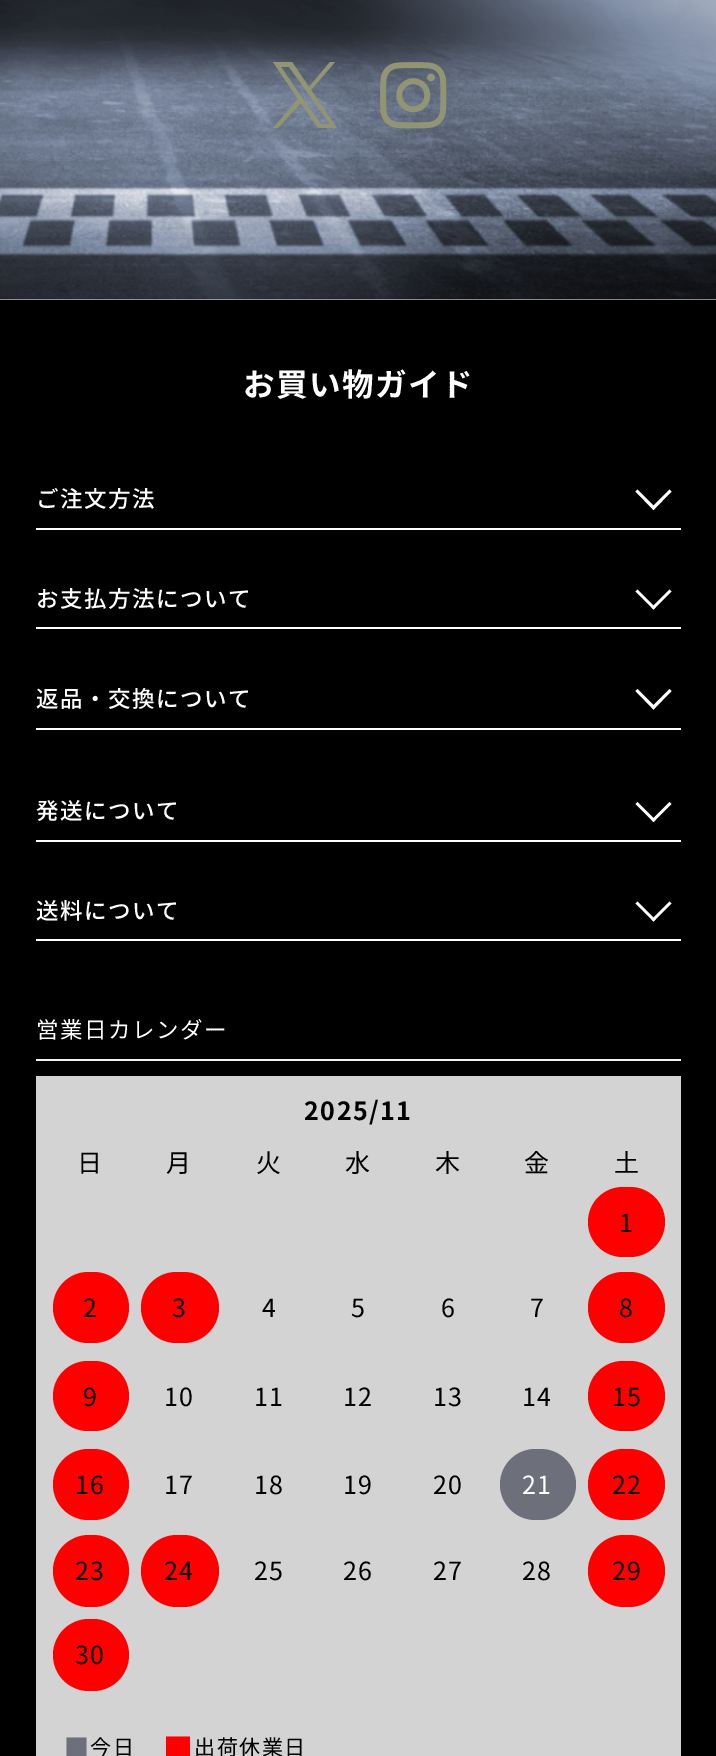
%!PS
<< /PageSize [716 1756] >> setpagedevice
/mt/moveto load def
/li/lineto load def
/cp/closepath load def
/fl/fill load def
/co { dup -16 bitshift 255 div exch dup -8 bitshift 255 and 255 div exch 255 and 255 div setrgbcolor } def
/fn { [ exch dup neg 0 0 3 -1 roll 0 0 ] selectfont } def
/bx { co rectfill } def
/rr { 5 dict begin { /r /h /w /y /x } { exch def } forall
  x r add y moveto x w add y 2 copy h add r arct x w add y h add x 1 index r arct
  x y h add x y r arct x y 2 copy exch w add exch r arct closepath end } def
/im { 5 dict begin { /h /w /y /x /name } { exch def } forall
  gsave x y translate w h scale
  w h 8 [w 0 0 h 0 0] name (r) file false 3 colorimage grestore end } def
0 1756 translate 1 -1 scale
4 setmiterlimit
0 0 716 1756 16#FFFFFF bx
(media/1.raw) 0 0 716 300 im
16#919573 co
311 90 mt 335 62 li 330 62 li 309 87 li 292 62 li 273 62 li 298 99 li 273 128 li 278 128 li 301 103 li 318 128 li 337 128 li cp 303 99 mt 281 67 li 289 67 li 330 124 li 321 124 li cp fl
(media/2.raw) 380 62 67 67 im
0 300 716 1456 16#000000 bx
36 528 645 2 16#FFFFFF bx
669.5 489.5 mt 671.5 491.5 li 653.5 510 li 651.5 507.5 li cp fl
637.5 489.5 mt 655.5 507.5 li 653.5 510 li 635.5 491.5 li cp fl
36 627 645 2 16#FFFFFF bx
669.5 589.5 mt 671.5 591.5 li 653.5 609.5 li 651.5 607.5 li cp fl
637.5 589.5 mt 655.5 607.5 li 653.5 609.5 li 635.5 591.5 li cp fl
36 728 645 2 16#FFFFFF bx
669.5 689 mt 671.5 691 li 653.5 709.5 li 651.5 707 li cp fl
637.5 689 mt 655.5 707 li 653.5 709.5 li 635.5 691 li cp fl
36 840 645 2 16#FFFFFF bx
669.5 802 mt 671.5 804 li 653.5 822 li 651.5 820 li cp fl
637.5 802 mt 655.5 820 li 653.5 822 li 635.5 804 li cp fl
36 939 645 2 16#FFFFFF bx
669.5 901.5 mt 671.5 903.5 li 653.5 921.5 li 651.5 919.5 li cp fl
637.5 901.5 mt 655.5 919.5 li 653.5 921.5 li 635.5 903.5 li cp fl
36 1059 645 2 16#F2F2F2 bx
36 1076 645 680 16#D3D3D3 bx
16#FF0000 co
588 1187 77 70 35 rr fl
53 1272 76 71 35.5 rr fl
141 1272 78 71 35.5 rr fl
588 1272 77 71 35.5 rr fl
53 1361 76 70 35 rr fl
588 1361 77 70 35 rr fl
53 1449 76 71 35.5 rr fl
16#6D6F7A co
500 1449 76 71 35.5 rr fl
16#FF0000 co
588 1449 77 71 35.5 rr fl
53 1535 76 72 36 rr fl
141 1535 78 72 36 rr fl
588 1535 77 72 36 rr fl
53 1619 76 72 36 rr fl
/NotoSansJP-Bold 31.5 fn
16#FFFFFF co
243 396 mt 1.5 0 (お買い物ガイド) ashow
/NotoSansJP-Medium 22.5 fn
36 507 mt 1.5 0 (ご注文方法) ashow
36 607 mt 1.5 0 (お支払方法について) ashow
36 707 mt 1.5 0 (返品・交換について) ashow
36 819 mt 1.5 0 (発送について) ashow
36 919 mt 1.5 0 (送料について) ashow
/NotoSansJP-Regular 22.5 fn
36 1038 mt 1.5 0 (営業日カレンダー) ashow
/NotoSansJP-Bold 25 fn
16#000000 co
304 1120 mt 1.5 0 (2025/11) ashow
/NotoSansJP-Regular 25 fn
77 1172 mt 1.5 0 (日) ashow
166 1172 mt 1.5 0 (月) ashow
256 1172 mt 1.5 0 (火) ashow
345 1172 mt 1.5 0 (水) ashow
435 1172 mt 1.5 0 (木) ashow
524 1172 mt 1.5 0 (金) ashow
614 1172 mt 1.5 0 (土) ashow
619 1232 mt 1.5 0 (1) ashow
83 1317 mt 1.5 0 (2) ashow
172 1317 mt 1.5 0 (3) ashow
262 1317 mt 1.5 0 (4) ashow
351 1317 mt 1.5 0 (5) ashow
441 1317 mt 1.5 0 (6) ashow
530 1317 mt 1.5 0 (7) ashow
619 1317 mt 1.5 0 (8) ashow
83 1406 mt 1.5 0 (9) ashow
164 1406 mt 1.5 0 (10) ashow
254 1406 mt 1.5 0 (11) ashow
343 1406 mt 1.5 0 (12) ashow
433 1406 mt 1.5 0 (13) ashow
522 1406 mt 1.5 0 (14) ashow
612 1406 mt 1.5 0 (15) ashow
75 1494 mt 1.5 0 (16) ashow
164 1494 mt 1.5 0 (17) ashow
254 1494 mt 1.5 0 (18) ashow
343 1494 mt 1.5 0 (19) ashow
433 1494 mt 1.5 0 (20) ashow
16#FFFFFF co
522 1494 mt 1.5 0 (21) ashow
16#000000 co
612 1494 mt 1.5 0 (22) ashow
75 1580 mt 1.5 0 (23) ashow
164 1580 mt 1.5 0 (24) ashow
254 1580 mt 1.5 0 (25) ashow
343 1580 mt 1.5 0 (26) ashow
433 1580 mt 1.5 0 (27) ashow
522 1580 mt 1.5 0 (28) ashow
612 1580 mt 1.5 0 (29) ashow
75 1664 mt 1.5 0 (30) ashow
16#6D6F7A co
64 1757 mt 1.5 0 (■) ashow
/NotoSansJP-Regular 21 fn
16#000000 co
90 1755 mt 1.5 0 (今日) ashow
/NotoSansJP-Regular 30 fn
16#FF0000 co
163 1760 mt 1.5 0 (■) ashow
/NotoSansJP-Regular 21 fn
16#000000 co
194 1755 mt 1.5 0 (出荷休業日) ashow
showpage
